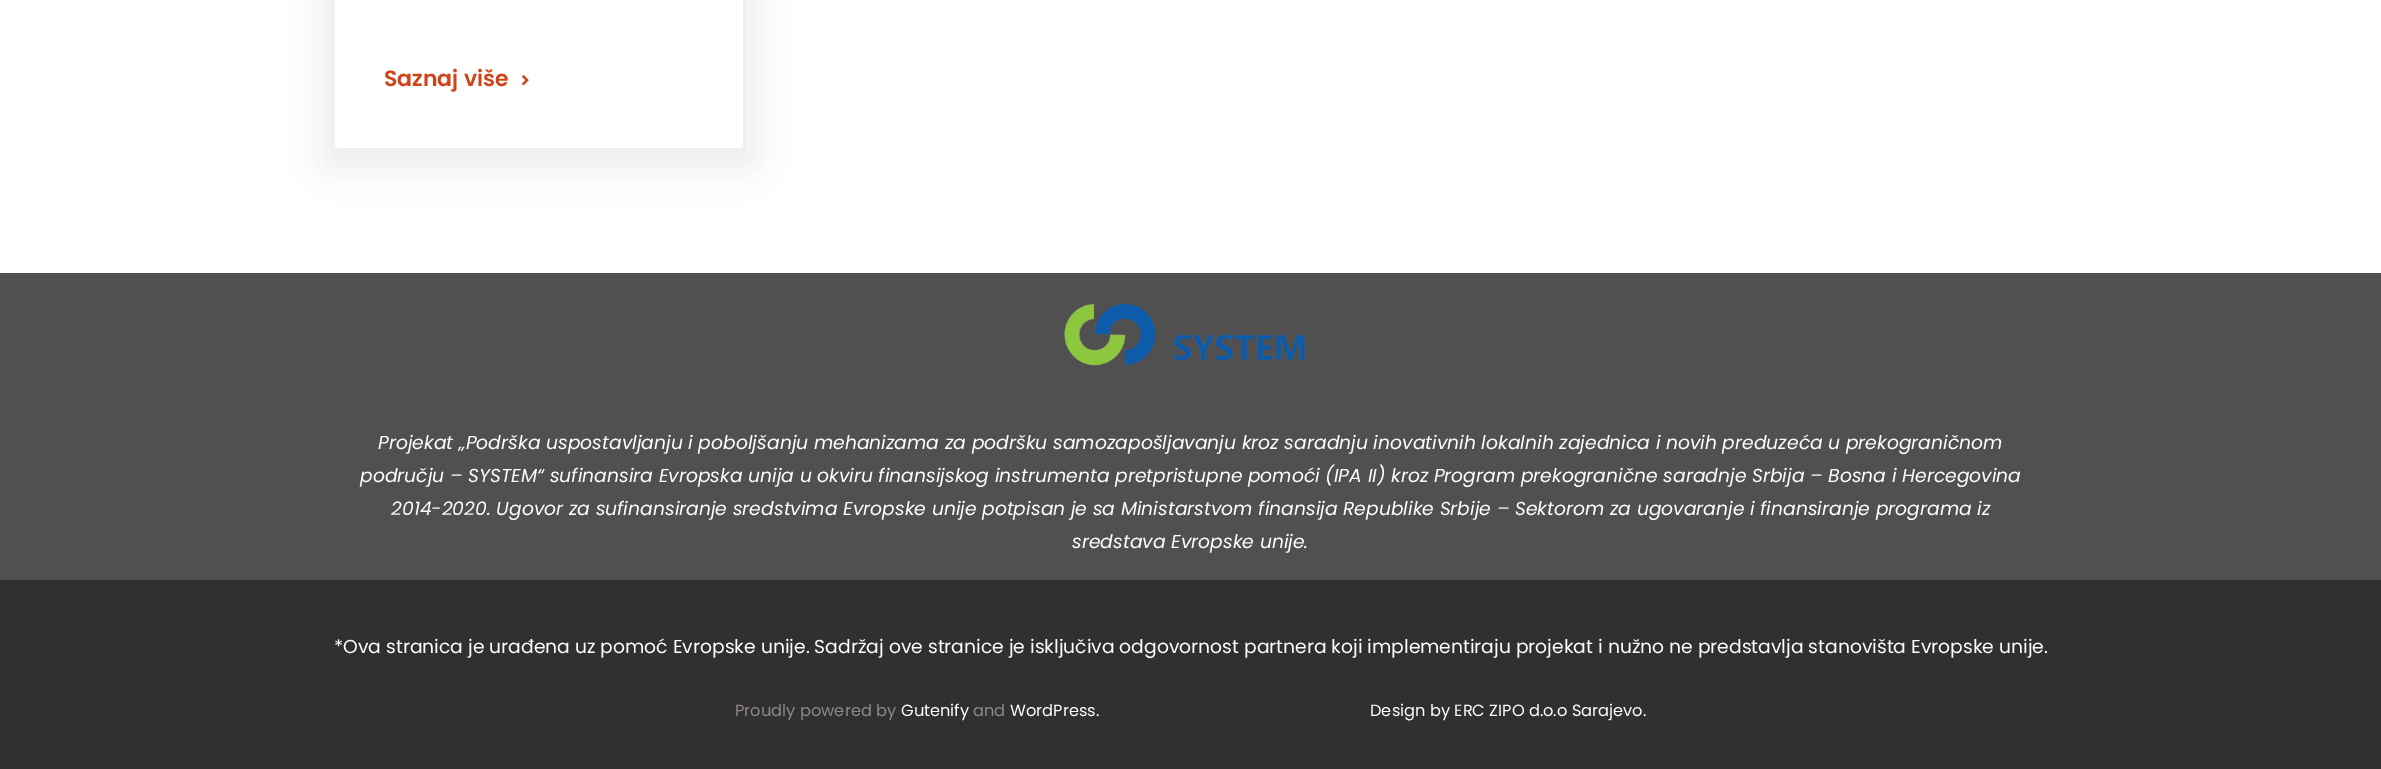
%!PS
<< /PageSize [2381 769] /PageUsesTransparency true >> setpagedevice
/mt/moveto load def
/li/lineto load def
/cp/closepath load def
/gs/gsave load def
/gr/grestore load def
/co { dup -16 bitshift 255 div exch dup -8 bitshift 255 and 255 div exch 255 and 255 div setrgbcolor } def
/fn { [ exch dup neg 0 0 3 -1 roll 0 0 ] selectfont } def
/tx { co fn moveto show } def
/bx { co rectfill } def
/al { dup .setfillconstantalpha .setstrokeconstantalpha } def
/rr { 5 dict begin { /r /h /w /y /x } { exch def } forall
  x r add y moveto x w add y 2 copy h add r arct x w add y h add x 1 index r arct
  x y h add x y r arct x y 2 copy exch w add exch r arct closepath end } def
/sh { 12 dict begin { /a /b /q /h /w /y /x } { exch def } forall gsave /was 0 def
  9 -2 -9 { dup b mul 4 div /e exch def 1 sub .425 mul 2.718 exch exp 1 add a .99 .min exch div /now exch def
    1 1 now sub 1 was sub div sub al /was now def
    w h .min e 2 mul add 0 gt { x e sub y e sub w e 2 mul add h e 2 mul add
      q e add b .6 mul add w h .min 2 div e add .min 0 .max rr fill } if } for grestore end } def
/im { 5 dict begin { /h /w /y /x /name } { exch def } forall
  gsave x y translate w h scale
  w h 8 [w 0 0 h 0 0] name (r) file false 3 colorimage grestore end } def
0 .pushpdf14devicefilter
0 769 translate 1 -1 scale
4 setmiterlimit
0 0 2381 769 16#FFFFFF bx
gs
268 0 mt 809 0 li 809 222 li 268 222 li cp 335 -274 mt 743 -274 li 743 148 li 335 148 li cp eoclip newpath
16#212547 co
326 -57 425 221 0 19 .1 sh
gr
(media/1.raw) 522 75 7 11 im
0 273 2381 307 16#505050 bx
(media/2.raw) 1064 303 241 63 im
0 580 2381 189 16#313030 bx
(Saznaj više) 384 86 /Poppins-SemiBold 22 16#CE4318 tx
(Projekat „Podrška uspostavljanju i poboljšanju mehanizama za podršku samozapošljavanju kroz saradnju inovativnih lokalnih zajednica i novih preduzeća u prekograničnom) 378 449 /Poppins-Italic 18.75 16#FFFFFF tx
(području – SYSTEM“ sufinansira Evropska unija u okviru finansijskog instrumenta pretpristupne pomoći \(IPA II\) kroz Program prekogranične saradnje Srbija – Bosna i Hercegovina) 360 482 /Poppins-Italic 18.75 16#FFFFFF tx
(2014-2020. Ugovor za sufinansiranje sredstvima Evropske unije potpisan je sa Ministarstvom finansija Republike Srbije – Sektorom za ugovaranje i finansiranje programa iz) 391 515 /Poppins-Italic 18.75 16#FFFFFF tx
(sredstava Evropske unije.) 1072 548 /Poppins-Italic 18.75 16#FFFFFF tx
(*Ova stranica je urađena uz pomoć Evropske unije. Sadržaj ove stranice je isključiva odgovornost partnera koji implementiraju projekat i nužno ne predstavlja stanovišta Evropske unije.) 334 653 /Poppins-Regular 18.75 16#FFFFFF tx
(Proudly powered by) 735 716 /Poppins-Regular 16.25 16#908787 tx
(Gutenify) 901 716 /Poppins-Regular 16.25 16#FFFFFF tx
(and) 973 716 /Poppins-Regular 16.25 16#908787 tx
(WordPress.) 1010 716 /Poppins-Regular 16.25 16#FFFFFF tx
(Design by ERC ZIPO d.o.o Sarajevo.) 1370 716 /Poppins-Regular 16.25 16#FFFFFF tx
.poppdf14devicefilter showpage
